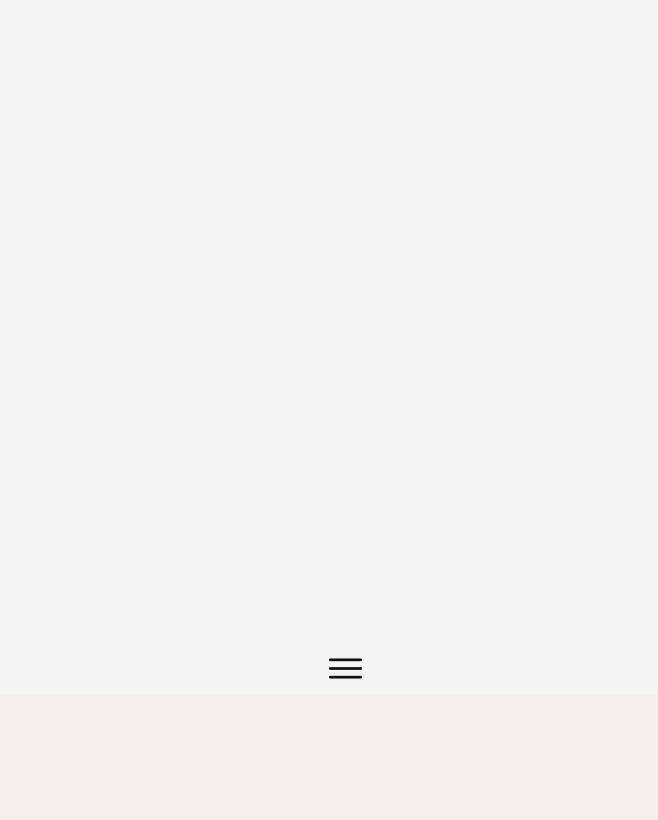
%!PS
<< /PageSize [658 820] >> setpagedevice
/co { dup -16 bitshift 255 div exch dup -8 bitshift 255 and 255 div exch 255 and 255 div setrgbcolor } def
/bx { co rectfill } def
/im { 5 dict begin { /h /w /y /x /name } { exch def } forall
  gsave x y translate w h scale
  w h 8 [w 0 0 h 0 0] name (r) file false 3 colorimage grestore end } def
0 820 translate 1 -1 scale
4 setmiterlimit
0 0 658 820 16#F5F5F5 bx
(media/1.raw) 329 658 33 21 im
0 695 658 125 16#F3EDED bx
showpage
